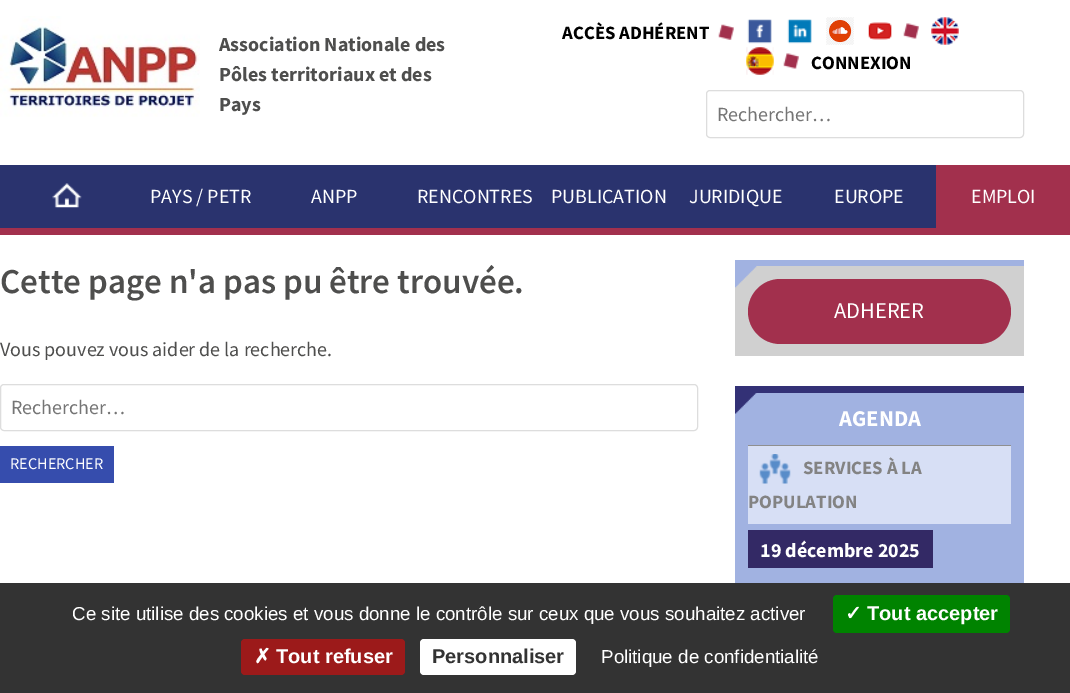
%!PS
<< /PageSize [1070 693] >> setpagedevice
/fl/fill load def
/st/stroke load def
/co { dup -16 bitshift 255 div exch dup -8 bitshift 255 and 255 div exch 255 and 255 div setrgbcolor } def
/fn { [ exch dup neg 0 0 3 -1 roll 0 0 ] selectfont } def
/tx { co fn moveto show } def
/bx { co rectfill } def
/rr { 5 dict begin { /r /h /w /y /x } { exch def } forall
  x r add y moveto x w add y 2 copy h add r arct x w add y h add x 1 index r arct
  x y h add x y r arct x y 2 copy exch w add exch r arct closepath end } def
/im { 5 dict begin { /h /w /y /x /name } { exch def } forall
  gsave x y translate w h scale
  w h 8 [w 0 0 h 0 0] name (r) file false 3 colorimage grestore end } def
0 693 translate 1 -1 scale
4 setmiterlimit
0 0 1070 693 16#FFFFFF bx
(media/1.raw) 0 16 200 101 im
(media/2.raw) 718 24 16 16 im
(media/3.raw) 747 19 25 25 im
(media/4.raw) 787 19 25 25 im
(media/5.raw) 826 17 28 28 im
(media/6.raw) 903 23 16 16 im
(media/7.raw) 868 22 24 18 im
(media/8.raw) 931 17 28 28 im
(media/9.raw) 783 53 16 16 im
(media/10.raw) 746 47 28 28 im
16#DDDDDD co
706.5 90.5 317 47 3.5 rr st
0 165 936 63 16#2A336E bx
0 228 1070 7 16#A2304D bx
(media/11.raw) 52 183 30 25 im
936 165 134 63 16#A2304D bx
16#DDDDDD co
.5 384.5 697 46 3.5 rr st
0 446 114 37 16#364DAD bx
735 266 289 90 16#D0D0D0 bx
735 260 289 6 16#A1B2E1 bx
(media/12.raw) 735 266 22 22 im
16#A2304D co
748 279 263 65 32.5 rr fl
735 393 289 190 16#A1B2E1 bx
735 386 289 7 16#333176 bx
(media/13.raw) 735 393 22 21 im
748 446 263 78 16#D7DFF5 bx
748 445 263 1 16#8F8F8F bx
(media/14.raw) 759 454 32 30 im
748 530 185 38 16#332965 bx
0 583 1070 110 16#333333 bx
16#008300 co
833 595 177 38 4 rr fl
16#9C1A1A co
241 639 164 36 4 rr fl
16#FFFFFF co
420 639 156 36 4 rr fl
(Association Nationale des) 219 51 /SourceSansPro-Bold 20 16#4E4E4D tx
(Pôles territoriaux et des) 219 81 /SourceSansPro-Bold 20 16#4E4E4D tx
(Pays) 219 111 /SourceSansPro-Bold 20 16#4E4E4D tx
(ACCÈS ADHÉRENT) 562 39 /SourceSansPro-Bold 18.75 16#000000 tx
(CONNEXION) 811 69 /SourceSansPro-Bold 18.75 16#000000 tx
(Rechercher…) 717 121 /SourceSansPro-Regular 20 16#757575 tx
(PAYS / PETR) 150 203 /SourceSansPro-Regular 20 16#FFFFFF tx
(ANPP) 311 203 /SourceSansPro-Regular 20 16#FFFFFF tx
(RENCONTRES) 417 203 /SourceSansPro-Regular 20 16#FFFFFF tx
(PUBLICATION) 551 203 /SourceSansPro-Regular 20 16#FFFFFF tx
(JURIDIQUE) 689 203 /SourceSansPro-Regular 20 16#FFFFFF tx
(EUROPE) 834 203 /SourceSansPro-Regular 20 16#FFFFFF tx
(EMPLOI) 971 203 /SourceSansPro-Regular 20 16#FFFFFF tx
(Cette page n'a pas pu être trouvée.) 0 293 /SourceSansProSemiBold-SemiBold 35 16#4E4E4D tx
(Vous pouvez vous aider de la recherche.) 0 356 /SourceSansPro-Regular 20 16#4E4E4D tx
(Rechercher…) 11 414 /SourceSansPro-Regular 20 16#757575 tx
(RECHERCHER) 10 469 /SourceSansPro-Regular 16.25 16#FFFFFF tx
(ADHERER) 834 318 /SourceSansPro-Regular 22.5 16#FFFFFF tx
(AGENDA) 839 426 /SourceSansPro-Bold 22.5 16#FFFFFF tx
(SERVICES À LA) 803 474 /SourceSansPro-Bold 18.75 16#838383 tx
(POPULATION) 748 508 /SourceSansPro-Bold 18.75 16#838383 tx
(19 décembre 2025) 760 557 /SourceSansPro-Bold 20 16#FFFFFF tx
(Ce site utilise des cookies et vous donne le contrôle sur ceux que vous souhaitez activer) 72 620 /LiberationSans-Regular 18.75 16#FFFFFF tx
(✓) 845 620 /DejaVuSans-Bold 20 16#FFFFFF tx
(Tout accepter) 867 620 /LiberationSans-Bold 20 16#FFFFFF tx
(✗) 254 663 /DejaVuSans-Bold 20 16#FFFFFF tx
(Tout refuser) 276 663 /LiberationSans-Bold 20 16#FFFFFF tx
(Personnaliser) 432 663 /LiberationSans-Bold 20 16#333333 tx
(Politique de confidentialité) 601 663 /LiberationSans-Regular 18.75 16#FFFFFF tx
showpage
